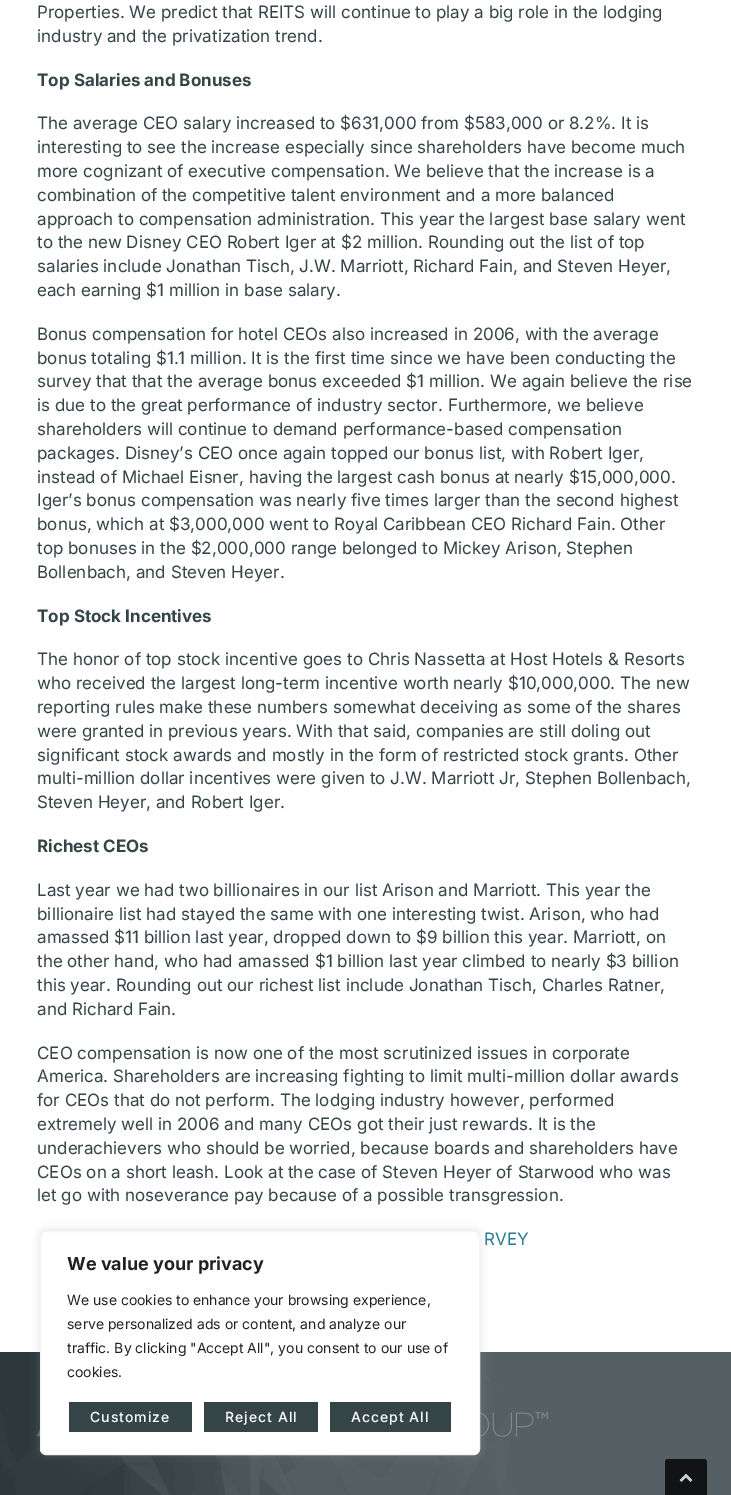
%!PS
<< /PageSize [731 1495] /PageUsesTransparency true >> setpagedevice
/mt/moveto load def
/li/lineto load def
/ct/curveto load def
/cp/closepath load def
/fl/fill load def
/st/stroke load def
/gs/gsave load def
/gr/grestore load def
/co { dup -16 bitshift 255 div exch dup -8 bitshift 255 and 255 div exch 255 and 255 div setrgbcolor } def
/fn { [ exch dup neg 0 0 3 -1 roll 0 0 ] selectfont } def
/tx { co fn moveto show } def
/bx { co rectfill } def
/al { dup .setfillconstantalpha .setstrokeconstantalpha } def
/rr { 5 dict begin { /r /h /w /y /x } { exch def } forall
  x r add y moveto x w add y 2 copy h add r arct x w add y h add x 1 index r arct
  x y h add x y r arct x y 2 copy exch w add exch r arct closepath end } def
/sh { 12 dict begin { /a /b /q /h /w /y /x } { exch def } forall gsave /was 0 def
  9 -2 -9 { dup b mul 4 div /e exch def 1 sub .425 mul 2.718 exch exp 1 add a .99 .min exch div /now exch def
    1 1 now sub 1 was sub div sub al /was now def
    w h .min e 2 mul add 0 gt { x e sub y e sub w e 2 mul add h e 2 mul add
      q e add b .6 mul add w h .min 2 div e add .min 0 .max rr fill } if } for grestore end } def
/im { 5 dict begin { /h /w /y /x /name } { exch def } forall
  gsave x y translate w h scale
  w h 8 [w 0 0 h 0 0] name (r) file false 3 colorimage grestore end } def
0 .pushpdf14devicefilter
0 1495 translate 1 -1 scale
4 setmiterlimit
0 0 731 1495 16#FFFFFF bx
0 1352 731 143 16#354447 bx
(media/1.raw) 0 1352 731 143 im
(media/2.raw) 37 1412 511 25 im
16#ACABAB co
40 1230 440 224 6 5 .3 sh
16#FFFFFF co
40.5 1231.5 439 223 5.5 rr gs fl gr
16#F4F4F4 co
st
69 1402 123 30 16#354447 bx
204 1402 114 30 16#354447 bx
330 1402 121 30 16#354447 bx
16#111314 co
668 1459 mt 704 1459 li 705.5 1459 707 1460.5 707 1462 ct 707 1495 li 665 1495 li 665 1462 li 665 1460.5 666.5 1459 668 1459 ct cp fl
(media/3.raw) 679 1473 14 9 im
(Properties. We predict that REITS will continue to play a big role in the lodging) 37 18 /Inter-Regular 17 16#354447 tx
(industry and the privatization trend.) 37 42 /Inter-Regular 17 16#354447 tx
(Top Salaries and Bonuses) 37 86 /Inter-Bold 17 16#354447 tx
(The average CEO salary increased to $631,000 from $583,000 or 8.2%. It is) 37 129 /Inter-Regular 17 16#354447 tx
(interesting to see the increase especially since shareholders have become much) 37 153 /Inter-Regular 17 16#354447 tx
(more cognizant of executive compensation. We believe that the increase is a) 37 177 /Inter-Regular 17 16#354447 tx
(combination of the competitive talent environment and a more balanced) 37 201 /Inter-Regular 17 16#354447 tx
(approach to compensation administration. This year the largest base salary went) 37 225 /Inter-Regular 17 16#354447 tx
(to the new Disney CEO Robert Iger at $2 million. Rounding out the list of top) 37 248 /Inter-Regular 17 16#354447 tx
(salaries include Jonathan Tisch, J.W. Marriott, Richard Fain, and Steven Heyer,) 37 272 /Inter-Regular 17 16#354447 tx
(each earning $1 million in base salary.) 37 296 /Inter-Regular 17 16#354447 tx
(Bonus compensation for hotel CEOs also increased in 2006, with the average) 37 340 /Inter-Regular 17 16#354447 tx
(bonus totaling $1.1 million. It is the first time since we have been conducting the) 37 364 /Inter-Regular 17 16#354447 tx
(survey that that the average bonus exceeded $1 million. We again believe the rise) 37 387 /Inter-Regular 17 16#354447 tx
(is due to the great performance of industry sector. Furthermore, we believe) 37 411 /Inter-Regular 17 16#354447 tx
(shareholders will continue to demand performance-based compensation) 37 435 /Inter-Regular 17 16#354447 tx
(packages. Disney’s CEO once again topped our bonus list, with Robert Iger,) 37 459 /Inter-Regular 17 16#354447 tx
(instead of Michael Eisner, having the largest cash bonus at nearly $15,000,000.) 37 483 /Inter-Regular 17 16#354447 tx
(Iger’s bonus compensation was nearly five times larger than the second highest) 37 506 /Inter-Regular 17 16#354447 tx
(bonus, which at $3,000,000 went to Royal Caribbean CEO Richard Fain. Other) 37 530 /Inter-Regular 17 16#354447 tx
(top bonuses in the $2,000,000 range belonged to Mickey Arison, Stephen) 37 554 /Inter-Regular 17 16#354447 tx
(Bollenbach, and Steven Heyer.) 37 578 /Inter-Regular 17 16#354447 tx
(Top Stock Incentives) 37 622 /Inter-Bold 17 16#354447 tx
(The honor of top stock incentive goes to Chris Nassetta at Host Hotels & Resorts) 37 665 /Inter-Regular 17 16#354447 tx
(who received the largest long-term incentive worth nearly $10,000,000. The new) 37 689 /Inter-Regular 17 16#354447 tx
(reporting rules make these numbers somewhat deceiving as some of the shares) 37 713 /Inter-Regular 17 16#354447 tx
(were granted in previous years. With that said, companies are still doling out) 37 737 /Inter-Regular 17 16#354447 tx
(significant stock awards and mostly in the form of restricted stock grants. Other) 37 761 /Inter-Regular 17 16#354447 tx
(multi-million dollar incentives were given to J.W. Marriott Jr, Stephen Bollenbach,) 37 784 /Inter-Regular 17 16#354447 tx
(Steven Heyer, and Robert Iger.) 37 808 /Inter-Regular 17 16#354447 tx
(Richest CEOs) 37 852 /Inter-Bold 17 16#354447 tx
(Last year we had two billionaires in our list Arison and Marriott. This year the) 37 896 /Inter-Regular 17 16#354447 tx
(billionaire list had stayed the same with one interesting twist. Arison, who had) 37 920 /Inter-Regular 17 16#354447 tx
(amassed $11 billion last year, dropped down to $9 billion this year. Marriott, on) 37 943 /Inter-Regular 17 16#354447 tx
(the other hand, who had amassed $1 billion last year climbed to nearly $3 billion) 37 967 /Inter-Regular 17 16#354447 tx
(this year. Rounding out our richest list include Jonathan Tisch, Charles Ratner,) 37 991 /Inter-Regular 17 16#354447 tx
(and Richard Fain.) 37 1015 /Inter-Regular 17 16#354447 tx
(CEO compensation is now one of the most scrutinized issues in corporate) 37 1059 /Inter-Regular 17 16#354447 tx
(America. Shareholders are increasing fighting to limit multi-million dollar awards) 37 1082 /Inter-Regular 17 16#354447 tx
(for CEOs that do not perform. The lodging industry however, performed) 37 1106 /Inter-Regular 17 16#354447 tx
(extremely well in 2006 and many CEOs got their just rewards. It is the) 37 1130 /Inter-Regular 17 16#354447 tx
(underachievers who should be worried, because boards and shareholders have) 37 1154 /Inter-Regular 17 16#354447 tx
(CEOs on a short leash. Look at the case of Steven Heyer of Starwood who was) 37 1178 /Inter-Regular 17 16#354447 tx
(let go with noseverance pay because of a possible transgression.) 37 1201 /Inter-Regular 17 16#354447 tx
(RVEY) 484 1245 /Inter-Regular 17 16#267C93 tx
(We value your privacy) 67 1270 /Inter-Bold 18 16#212121 tx
(We use cookies to enhance your browsing experience,) 67 1305 /Inter-Regular 14 16#212121 tx
(serve personalized ads or content, and analyze our) 67 1329 /Inter-Regular 14 16#212121 tx
(traffic. By clicking "Accept All", you consent to our use of) 67 1353 /Inter-Regular 14 16#212121 tx
(cookies.) 67 1377 /Inter-Regular 14 16#212121 tx
/Inter-Medium 14 fn
16#FFFFFF co
90 1422 mt 1 0 (Customize) ashow
225 1422 mt 1 0 (Reject All) ashow
351 1422 mt 1 0 (Accept All) ashow
.poppdf14devicefilter showpage
